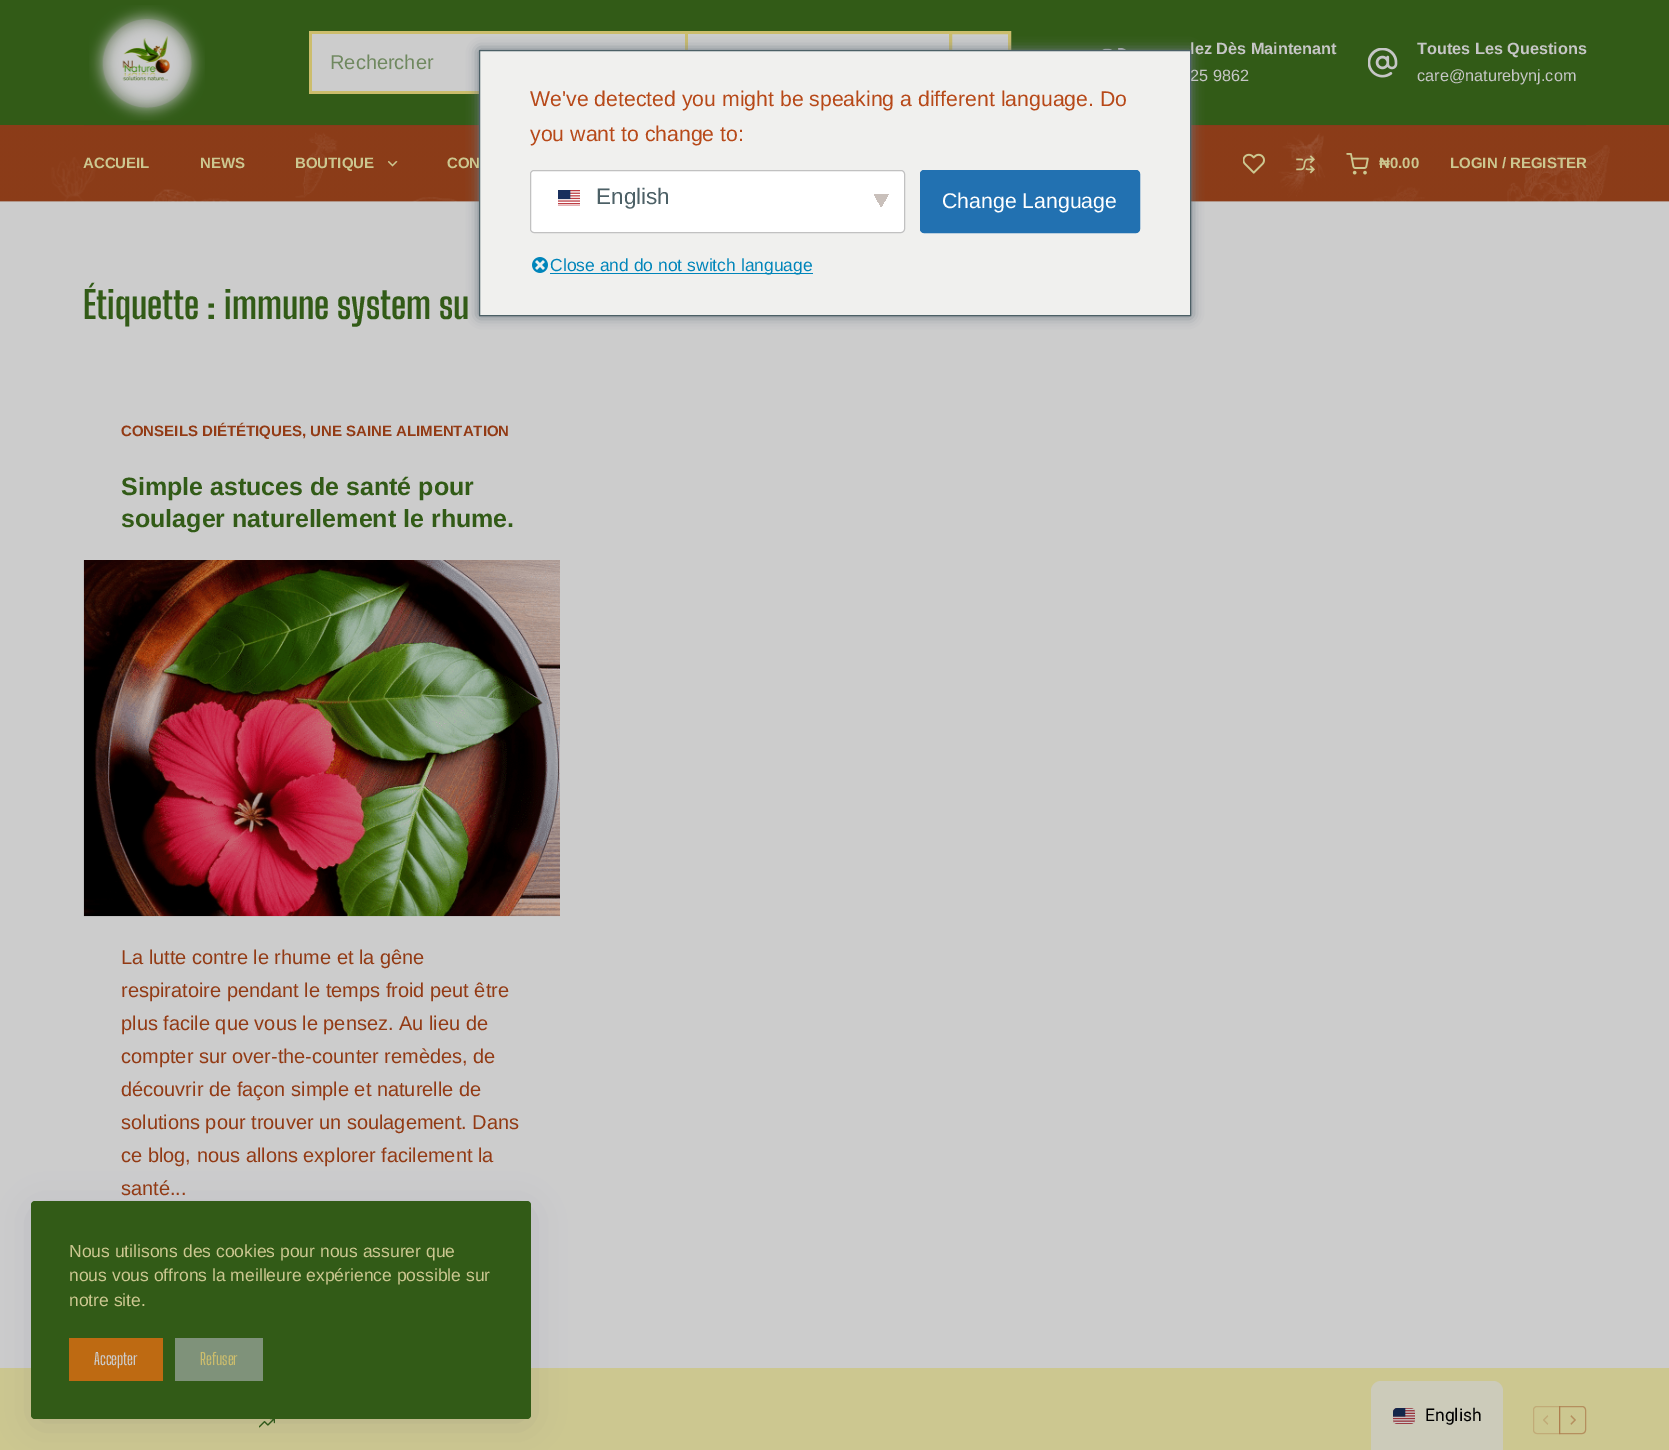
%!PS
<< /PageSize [1669 1450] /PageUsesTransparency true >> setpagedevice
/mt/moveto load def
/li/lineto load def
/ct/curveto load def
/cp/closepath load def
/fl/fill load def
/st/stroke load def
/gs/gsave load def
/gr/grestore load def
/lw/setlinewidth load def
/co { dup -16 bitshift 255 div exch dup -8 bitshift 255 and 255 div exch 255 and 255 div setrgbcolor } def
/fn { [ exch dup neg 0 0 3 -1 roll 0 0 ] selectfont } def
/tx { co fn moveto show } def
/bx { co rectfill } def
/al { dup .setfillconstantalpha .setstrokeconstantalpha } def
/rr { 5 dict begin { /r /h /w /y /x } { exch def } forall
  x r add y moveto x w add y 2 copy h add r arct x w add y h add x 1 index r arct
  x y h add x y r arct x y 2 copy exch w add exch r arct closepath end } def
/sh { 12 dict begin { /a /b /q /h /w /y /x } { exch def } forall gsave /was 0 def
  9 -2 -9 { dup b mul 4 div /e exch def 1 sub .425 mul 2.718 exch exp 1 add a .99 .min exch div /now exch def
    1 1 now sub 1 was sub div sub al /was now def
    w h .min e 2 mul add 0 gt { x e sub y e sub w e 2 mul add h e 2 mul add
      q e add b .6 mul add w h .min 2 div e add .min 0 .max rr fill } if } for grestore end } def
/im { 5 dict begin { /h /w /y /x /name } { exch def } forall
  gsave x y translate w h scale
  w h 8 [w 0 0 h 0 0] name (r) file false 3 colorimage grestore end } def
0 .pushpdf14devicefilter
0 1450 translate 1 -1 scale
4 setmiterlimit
0 0 1669 1450 16#CCCCCC bx
0 0 1669 125 16#325B17 bx
(media/1.raw) 89 5 116 116 im
312 34 373 57 16#CCCCCC bx
309 31 640 3 16#CCBD6C bx
309 91 170 3 16#CCBD6C bx
309 31 3 63 16#CCBD6C bx
688 34 261 16 16#CCCCCC bx
685 31 3 19 16#CCBD6C bx
952 34 56 16 16#CCCCCC bx
16#CCBD6C co
3 lw
950.5 32.5 59 60 rectstroke
(media/2.raw) 1102 48 24 2 im
(media/3.raw) 1368 48 30 30 im
(media/4.raw) 0 125 1669 77 im
0.05 al
84 125 1502 1 16#22313F bx
1 al
(media/5.raw) 388 161 10 6 im
(media/6.raw) 1243 153 22 21 im
(media/7.raw) 1296 155 19 19 im
(media/8.raw) 1346 153 23 22 im
(media/9.raw) 83 560 477 357 im
0 1368 1669 82 16#CCC790 bx
(media/10.raw) 259 1419 16 9 im
16#C1AB77 co
1 lw
1537 1406.5 mt 1559.5 1406.5 li 1559.5 1433.5 li 1537 1433.5 li 1535 1433.5 1533.5 1432 1533.5 1430 ct 1533.5 1410 li 1533.5 1408 1535 1406.5 1537 1406.5 ct cp st
(media/11.raw) 1543 1415 6 10 im
0.4 al
16#923A14 co
1559.5 1406.5 mt 1582 1406.5 li 1584 1406.5 1585.5 1408 1585.5 1410 ct 1585.5 1430 li 1585.5 1432 1584 1433.5 1582 1433.5 ct 1559.5 1433.5 li cp st
1 al
(media/12.raw) 1570 1415 6 10 im
16#6C7781 co
479 50 712 266 0 6 1 sh
16#1B2D51 co
38 1214 487 205 0 19 .15 sh
16#325B17 co
31 1201 500 218 4 rr fl
69 1338 94 43 16#BE6A12 bx
175 1338 88 43 16#7F927A bx
0.7 al
16#CCCCCC co
1381 1381 mt 1493 1381 li 1498.5 1381 1503 1385.5 1503 1391 ct 1503 1450 li 1371 1450 li 1371 1391 li 1371 1385.5 1375.5 1381 1381 1381 ct cp fl
1 al
(media/15.raw) 1393 1408 22 16 im
(Rechercher) 330 69 /LiberationSans-Regular 20 16#6F885F tx
(lez Dès Maintenant) 1190 54 /LiberationSans-Bold 16.25 16#C6C6C6 tx
(25 9862) 1190 81 /LiberationSans-Regular 16.25 16#C6C6C6 tx
(Toutes Les Questions) 1417 54 /LiberationSans-Bold 16.25 16#C6C6C6 tx
(care@naturebynj.com) 1417 81 /LiberationSans-Regular 16.25 16#C6C6C6 tx
(ACCUEIL) 83 168 /LiberationSans-Bold 15 16#CCC790 tx
(NEWS) 200 168 /LiberationSans-Bold 15 16#CCC790 tx
(BOUTIQUE) 295 168 /LiberationSans-Bold 15 16#CCC790 tx
(CON) 447 168 /LiberationSans-Bold 15 16#CCC790 tx
(₦0.00) 1379 168 /LiberationSans-Bold 15 16#CCC790 tx
(LOGIN / REGISTER) 1450 168 /LiberationSans-Bold 15 16#CCC790 tx
(Étiquette : immune system su) 83 319 /BigShouldersDisplay-Bold 37.5 16#325B17 tx
(CONSEILS DIÉTÉTIQUES, UNE SAINE ALIMENTATION) 121 436 /LiberationSans-Bold 15 16#923A14 tx
(Simple astuces de santé pour) 121 495 /LiberationSans-Bold 25 16#325B17 tx
(soulager naturellement le rhume.) 121 527 /LiberationSans-Bold 25 16#325B17 tx
(La lutte contre le rhume et la gêne) 121 964 /LiberationSans-Regular 20 16#923A14 tx
(respiratoire pendant le temps froid peut être) 121 997 /LiberationSans-Regular 20 16#923A14 tx
(plus facile que vous le pensez. Au lieu de) 121 1030 /LiberationSans-Regular 20 16#923A14 tx
(compter sur over-the-counter remèdes, de) 121 1063 /LiberationSans-Regular 20 16#923A14 tx
(découvrir de façon simple et naturelle de) 121 1096 /LiberationSans-Regular 20 16#923A14 tx
(solutions pour trouver un soulagement. Dans) 121 1129 /LiberationSans-Regular 20 16#923A14 tx
(ce blog, nous allons explorer facilement la) 121 1162 /LiberationSans-Regular 20 16#923A14 tx
(santé...) 121 1195 /LiberationSans-Regular 20 16#923A14 tx
16#F0F0EE co
479.5 50.5 mt 1190.5 50.5 li 1190.5 315.5 li 479.5 315.5 li cp gs fl gr
16#4C6066 co
st
(We've detected you might be speaking a different language. Do) 530 106 /LiberationSans-Regular 21.25 16#B74919 tx
(you want to change to:) 530 141 /LiberationSans-Regular 21.25 16#B74919 tx
16#FFFFFF co
530 170 375 63 4 rr fl
gs 881 194 mt 889 194 li 889 209 li 881 209 li cp clip newpath
<< /ShadingType 2 /ColorSpace /DeviceRGB /Coords [879 198 891 205] /Extend [true true] /Function << /FunctionType 3 /Domain [0 1] /Functions [<< /FunctionType 2 /Domain [0 1] /C0 [.788 .753 .733] /C1 [.788 .753 .733] /N 1 >> << /FunctionType 2 /Domain [0 1] /C0 [1 1 1] /C1 [1 1 1] /N 1 >>] /Bounds [.5] /Encode [0 1 0 1] >> >> shfill gr
gs 874 194 mt 881 194 li 881 209 li 874 209 li cp clip newpath
<< /ShadingType 2 /ColorSpace /DeviceRGB /Coords [871 205 884 198] /Extend [true true] /Function << /FunctionType 3 /Domain [0 1] /Functions [<< /FunctionType 2 /Domain [0 1] /C0 [1 1 1] /C1 [1 1 1] /N 1 >> << /FunctionType 2 /Domain [0 1] /C0 [.788 .753 .733] /C1 [.788 .753 .733] /N 1 >>] /Bounds [.5] /Encode [0 1 0 1] >> >> shfill gr
16#C1C1C1 co
530.5 170.5 374 62 3.5 rr st
(media/13.raw) 558 190 22 16 im
(English) 596 204 /LiberationSans-Regular 22.5 16#4C6066 tx
16#2271B1 co
920.5 170.5 219 62 3.5 rr gs fl gr
st
(Change Language) 942 208 /LiberationSans-Regular 21.25 16#FFFFFF tx
(media/14.raw) 532 257 16 16 im
550 273 263 1 16#0085BA bx
(Close and do not switch language) 550 271 /LiberationSans-Regular 17.5 16#0085BA tx
(Nous utilisons des cookies pour nous assurer que) 69 1257 /LiberationSans-Regular 17.5 16#CCC790 tx
(nous vous offrons la meilleure expérience possible sur) 69 1281 /LiberationSans-Regular 17.5 16#CCC790 tx
(notre site.) 69 1306 /LiberationSans-Regular 17.5 16#CCC790 tx
(Accepter) 94 1365 /BigShouldersDisplay-Medium 16.25 16#CCCCCC tx
(Refuser) 200 1365 /BigShouldersDisplay-Medium 16.25 16#CCBD6C tx
(English) 1425 1421 /Roboto-Regular 17.5 16#000000 tx
.poppdf14devicefilter showpage
